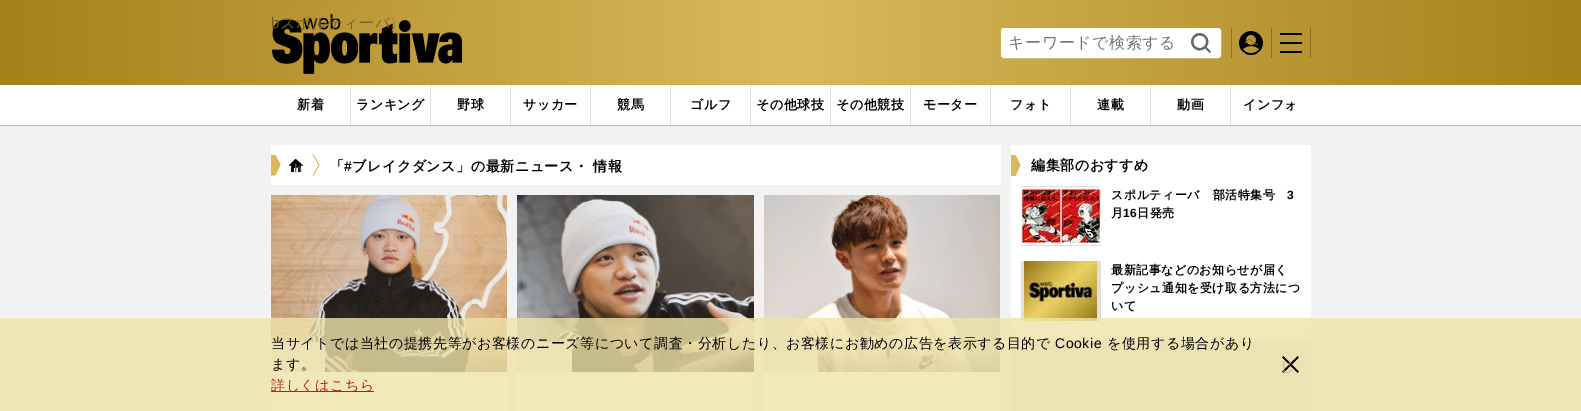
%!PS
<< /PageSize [1581 411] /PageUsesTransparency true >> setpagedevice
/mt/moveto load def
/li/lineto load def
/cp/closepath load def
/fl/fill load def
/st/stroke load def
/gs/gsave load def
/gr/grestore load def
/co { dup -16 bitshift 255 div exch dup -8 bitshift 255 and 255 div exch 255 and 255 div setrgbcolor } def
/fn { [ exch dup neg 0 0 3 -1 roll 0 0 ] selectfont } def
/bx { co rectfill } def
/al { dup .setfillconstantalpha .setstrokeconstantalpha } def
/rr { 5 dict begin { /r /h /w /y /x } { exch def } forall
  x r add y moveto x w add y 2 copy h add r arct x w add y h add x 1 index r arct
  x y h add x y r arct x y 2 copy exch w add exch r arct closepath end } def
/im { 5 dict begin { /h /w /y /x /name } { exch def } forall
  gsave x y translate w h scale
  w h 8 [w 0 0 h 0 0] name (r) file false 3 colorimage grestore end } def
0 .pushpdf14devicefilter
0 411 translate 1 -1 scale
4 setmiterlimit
0 0 1581 411 16#F2F2F2 bx
0 85 1581 40 16#FFFFFF bx
gs 0 0 mt 1581 0 li 1581 85 li 0 85 li cp clip newpath
<< /ShadingType 2 /ColorSpace /DeviceRGB /Coords [0 43 1581 42] /Extend [true true] /Function << /FunctionType 3 /Domain [0 1] /Functions [<< /FunctionType 2 /Domain [0 1] /C0 [.647 .506 .098] /C1 [.851 .725 .361] /N 1 >> << /FunctionType 2 /Domain [0 1] /C0 [.851 .725 .361] /C1 [.647 .506 .098] /N 1 >>] /Bounds [.5] /Encode [0 1 0 1] >> >> shfill gr
(media/1.raw) 272 14 191 60 im
1001.5 28.5 219 29 2.5 rr gs fl gr
st
(media/2.raw) 1191 33 20 20 im
1231 28 1 30 16#8D7429 bx
(media/3.raw) 1239 31 24 24 im
1271 28 1 30 16#8B7126 bx
(media/4.raw) 1280 33 22 20 im
1310 28 1 30 16#896F24 bx
350 85 1 40 16#DFDFDF bx
430 85 1 40 16#DFDFDF bx
510 85 1 40 16#DFDFDF bx
590 85 1 40 16#DFDFDF bx
670 85 1 40 16#DFDFDF bx
750 85 1 40 16#DFDFDF bx
830 85 1 40 16#DFDFDF bx
910 85 1 40 16#DFDFDF bx
990 85 1 40 16#DFDFDF bx
1070 85 1 40 16#DFDFDF bx
1150 85 1 40 16#DFDFDF bx
1230 85 1 40 16#DFDFDF bx
0 125 1581 1 16#D9B95C bx
271 372 236 39 16#FFFFFF bx
(media/7.raw) 271 195 236 177 im
271 342 54 30 16#DFDFDF bx
517 372 237 39 16#FFFFFF bx
(media/8.raw) 517 195 237 177 im
517 342 55 30 16#DFDFDF bx
764 372 236 39 16#FFFFFF bx
(media/9.raw) 764 195 236 177 im
764 342 54 30 16#DFDFDF bx
1011 145 300 186 16#FFFFFF bx
1021 261 80 60 16#DFDFDF bx
(media/11.raw) 1024 261 73 60 im
1011 341 300 70 16#DFDFDF bx
0.8 al
0 318 1581 93 16#EFE3A9 bx
1 al
271 391 103 1 16#BB1B21 bx
(media/5.raw) 1282 356 17 17 im
271 145 730 40 16#FFFFFF bx
16#D9B95C co
271 155 mt 271 175.5 li 275.5 175.5 li 280.5 164.5 li 275.5 155 li cp fl
(media/6.raw) 289 159 14 13 im
312.5 154.5 mt 313.5 154.5 li 319.5 165 li 318.5 165 li cp fl
318.5 165 mt 319.5 165 li 313.5 175.5 li 312.5 175.5 li cp fl
1011 155 mt 1011 176 li 1015.5 176 li 1020.5 165 li 1015.5 155 li cp fl
1021 186 80 60 16#DFDFDF bx
(media/10.raw) 1021 187 80 58 im
gs
272 14 190 60 rectclip
/LiberationSans-Regular 15 fn
16#735D1E co
271 28 mt .5 0 (b) ashow
gr
/WenQuanYiZenHei-Medium 15 fn
16#7C6524 co
280 28 mt .5 0 (スポルティーバ) ashow
/LiberationSans-Regular 15 fn
16#A88A33 co
391 28 mt .5 0 (\)) ashow
/WenQuanYiZenHei-Medium 16 fn
16#757575 co
1008 48 mt .6 0 (キーワードで検索する) ashow
/WenQuanYiZenHei-Medium 14 fn
16#836B25 co
1244 46 mt .55 0 (ペ) ashow
/WenQuanYiZenHei-Bold 13 fn
16#000000 co
297 109 mt .5 0 (新着) ashow
356 109 mt .5 0 (ランキング) ashow
457 109 mt .5 0 (野球) ashow
523 109 mt .5 0 (サッカー) ashow
617 109 mt .5 0 (競馬) ashow
690 109 mt .5 0 (ゴルフ) ashow
756 109 mt .5 0 (その他球技) ashow
836 109 mt .5 0 (その他競技) ashow
923 109 mt .5 0 (モーター) ashow
1010 109 mt .5 0 (フォト) ashow
1097 109 mt .5 0 (連載) ashow
1177 109 mt .5 0 (動画) ashow
1243 109 mt .5 0 (インフォ) ashow
/WenQuanYiZenHei-Medium 14 fn
271 348 mt .55 0 (当サイトでは当社の提携先等がお客様のニーズ等について調査・分析したり、お客様にお勧めの広告を表⽰する⽬的で) ashow
/LiberationSans-Regular 14 fn
1055 348 mt .55 0 (Cookie) ashow
/WenQuanYiZenHei-Medium 14 fn
1107 348 mt .55 0 (を使⽤する場合があり) ashow
271 369 mt .55 0 (ます。) ashow
16#BB1B21 co
271 390 mt .55 0 (詳しくはこちら) ashow
16#BCB590 co
1280 371 mt .55 0 (じ) ashow
gs
289 159 14 13 rectclip
/LiberationSans-Regular 14 fn
16#5D5D5D co
294 174 mt .55 0 (b) ashow
gr
/WenQuanYiZenHei-Bold 14 fn
16#000000 co
330 171 mt .55 0 (「) ashow
/LiberationSans-Bold 14 fn
344 171 mt .55 0 (#) ashow
/WenQuanYiZenHei-Bold 14 fn
352 171 mt .55 0 (ブレイクダンス」の最新ニュース・ 情報) ashow
1031 170 mt .55 0 (編集部のおすすめ) ashow
/WenQuanYiZenHei-Bold 12 fn
1111 199 mt .5 0 (スポルティーバ　部活特集号) ashow
/LiberationSans-Bold 12 fn
1287 199 mt .5 0 (3) ashow
/WenQuanYiZenHei-Bold 12 fn
1111 217 mt .5 0 (月) ashow
/LiberationSans-Bold 12 fn
1123 217 mt .5 0 (16) ashow
/WenQuanYiZenHei-Bold 12 fn
1137 217 mt .5 0 (日発売) ashow
1111 274 mt .5 0 (最新記事などのお知らせが届く) ashow
1111 292 mt .5 0 (プッシュ通知を受け取る方法につ) ashow
1111 310 mt .5 0 (いて) ashow
.poppdf14devicefilter showpage
